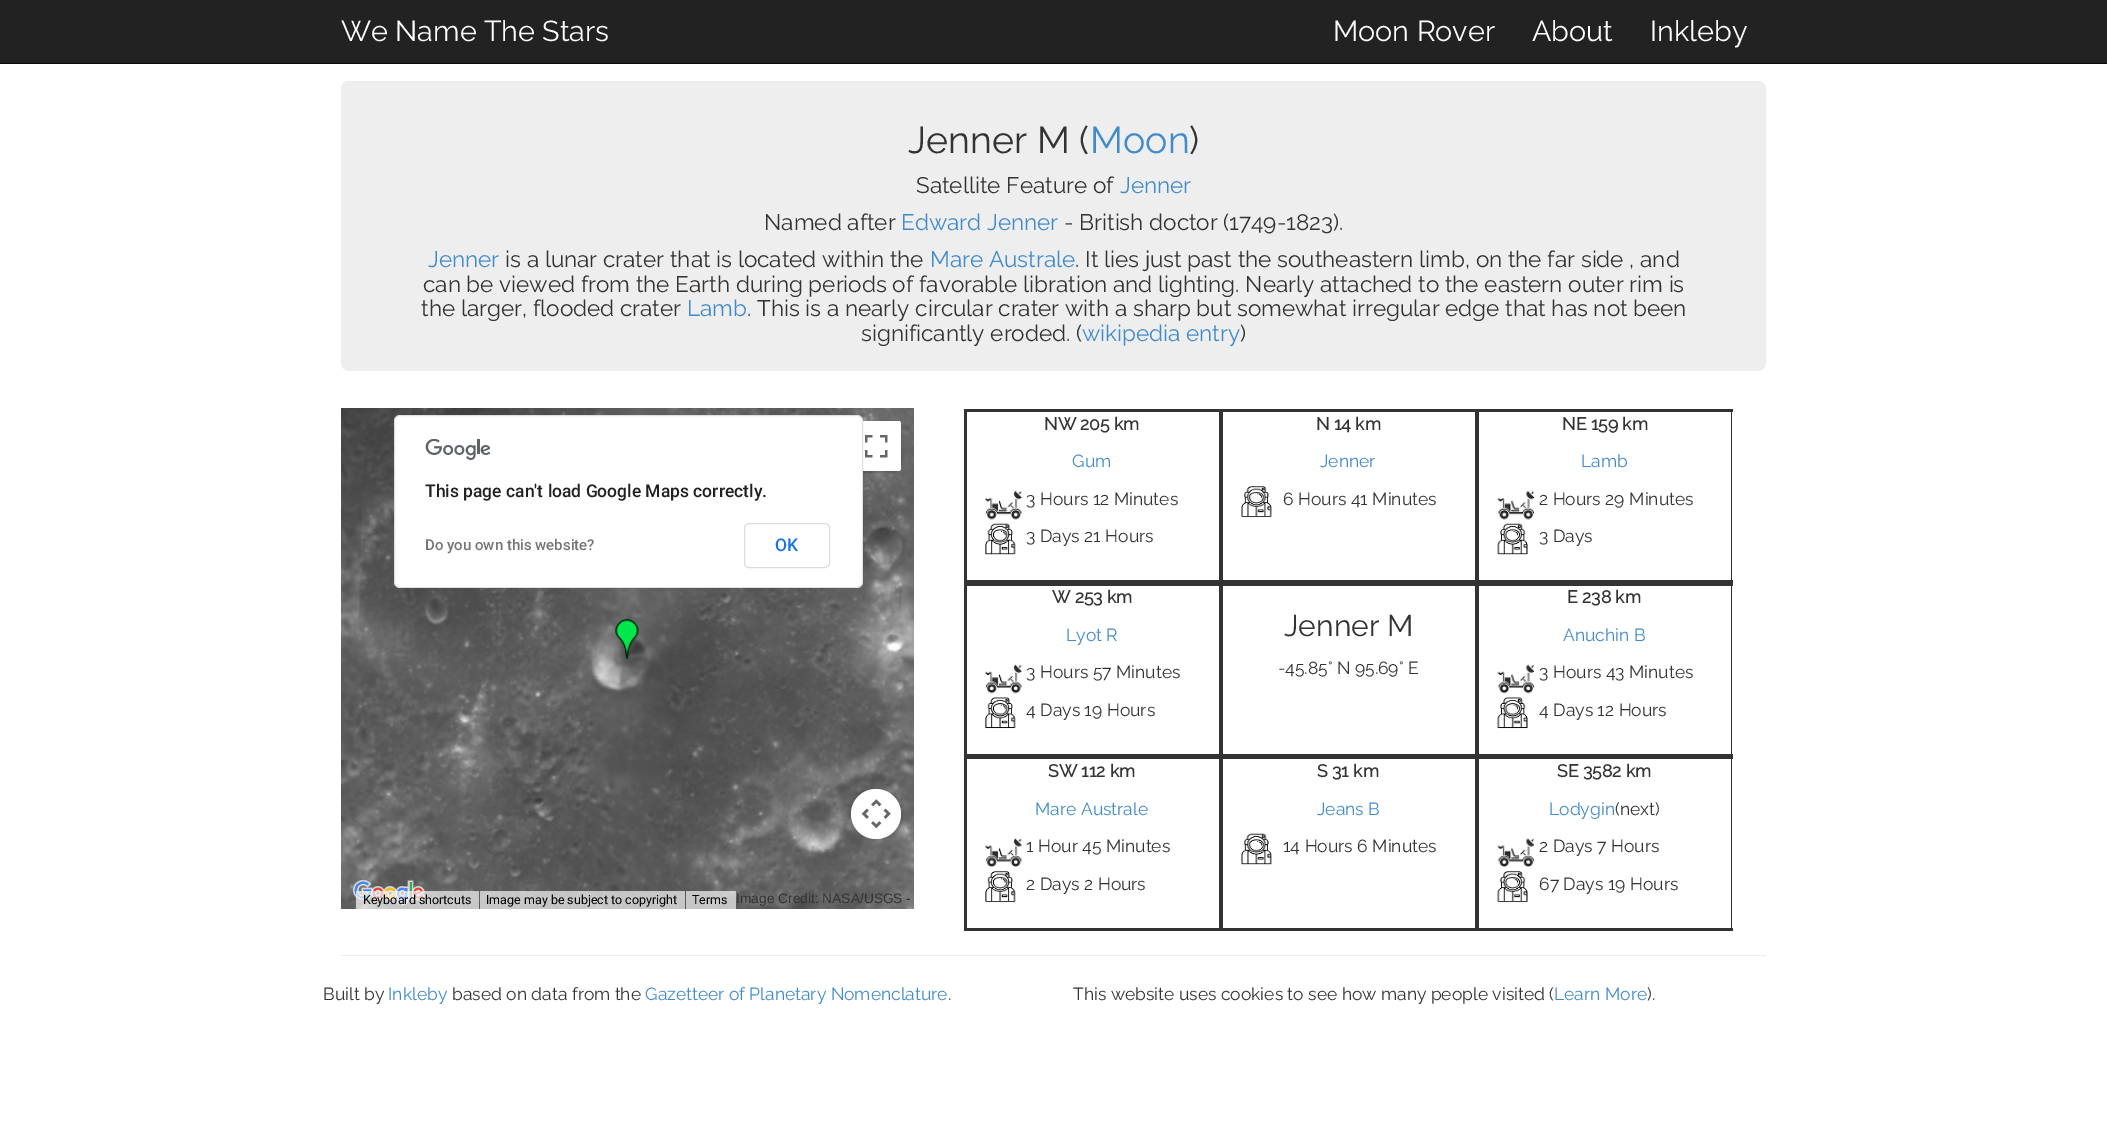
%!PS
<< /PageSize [2107 1133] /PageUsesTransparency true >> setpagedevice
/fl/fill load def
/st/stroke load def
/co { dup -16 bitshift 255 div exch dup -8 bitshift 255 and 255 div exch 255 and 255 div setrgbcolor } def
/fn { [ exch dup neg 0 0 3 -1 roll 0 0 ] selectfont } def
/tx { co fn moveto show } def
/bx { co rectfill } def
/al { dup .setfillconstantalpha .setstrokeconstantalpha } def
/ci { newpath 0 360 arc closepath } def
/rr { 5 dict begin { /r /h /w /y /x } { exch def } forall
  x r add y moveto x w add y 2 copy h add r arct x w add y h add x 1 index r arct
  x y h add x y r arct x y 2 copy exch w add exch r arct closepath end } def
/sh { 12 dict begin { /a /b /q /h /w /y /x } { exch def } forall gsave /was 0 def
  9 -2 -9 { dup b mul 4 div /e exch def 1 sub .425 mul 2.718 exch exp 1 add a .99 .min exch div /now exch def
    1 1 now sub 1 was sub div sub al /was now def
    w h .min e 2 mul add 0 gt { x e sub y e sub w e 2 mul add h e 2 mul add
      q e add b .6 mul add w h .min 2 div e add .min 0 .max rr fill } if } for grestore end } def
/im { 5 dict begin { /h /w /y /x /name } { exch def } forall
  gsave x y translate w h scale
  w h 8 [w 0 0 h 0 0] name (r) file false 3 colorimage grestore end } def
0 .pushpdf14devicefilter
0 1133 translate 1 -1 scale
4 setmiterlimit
0 0 2107 1133 16#FFFFFF bx
0 0 2107 63 16#222222 bx
0 63 2107 1 16#080808 bx
16#EEEEEE co
341 81 1425 290 8 rr fl
(media/2.raw) 341 408 279 127 im
(media/3.raw) 620 408 294 127 im
(media/4.raw) 341 535 279 320 im
(media/5.raw) 620 535 294 320 im
16#000000 co
853 424 47 47 1 2.5 .3 sh
16#FFFFFF co
851 421 50 50 2.5 rr fl
394 415 469 173 6 rr fl
0.12 al
16#000000 co
394.5 415.5 468 172 5.5 rr st
1 al
(media/1.raw) 425 439 65 21 im
16#DADCE0 co
744.5 523.5 85 44 4.5 rr st
(media/6.raw) 341 855 279 54 im
(media/7.raw) 620 855 294 54 im
(media/8.raw) 614 618 25 41 im
(media/9.raw) 865 435 23 23 im
16#000000 co
853 791 47 48 23.5 2.5 .3 sh
16#FFFFFF co
876 814 25 ci fl
(media/10.raw) 861 799 30 30 im
(media/11.raw) 352 879 74 27 im
0.7 al
356 891 123 18 16#F5F5F5 bx
480 891 205 18 16#F5F5F5 bx
686 891 50 18 16#F5F5F5 bx
1 al
964 580 769 3 16#333333 bx
964 409 769 3 16#333333 bx
1219 409 4 171 16#333333 bx
964 409 3 171 16#333333 bx
(media/12.raw) 985 490 38 30 im
(media/13.raw) 985 523 31 32 im
1475 409 4 171 16#333333 bx
(media/14.raw) 1241 486 31 32 im
1731 409 1 171 16#333333 bx
(media/15.raw) 1497 490 38 30 im
(media/16.raw) 1497 523 31 32 im
964 754 769 2 16#333333 bx
964 583 769 3 16#333333 bx
1219 583 4 171 16#333333 bx
964 583 3 171 16#333333 bx
(media/17.raw) 985 664 38 30 im
(media/18.raw) 985 697 31 32 im
1475 583 4 171 16#333333 bx
1731 583 1 171 16#333333 bx
(media/19.raw) 1497 664 38 30 im
(media/20.raw) 1497 697 31 32 im
964 928 769 3 16#333333 bx
964 756 769 3 16#333333 bx
1219 756 4 172 16#333333 bx
964 756 3 172 16#333333 bx
(media/21.raw) 985 838 38 29 im
(media/22.raw) 985 871 31 32 im
1475 756 4 172 16#333333 bx
(media/23.raw) 1241 833 31 32 im
1731 756 1 172 16#333333 bx
(media/24.raw) 1497 838 38 29 im
(media/25.raw) 1497 871 31 32 im
341 955 1425 1 16#EEEEEE bx
(We Name The Stars) 341 41 /Raleway-Regular 28.75 16#FFFFFF tx
(Moon Rover) 1333 41 /Raleway-Regular 28.75 16#FFFFFF tx
(About) 1532 41 /Raleway-Regular 28.75 16#FFFFFF tx
(Inkleby) 1650 41 /Raleway-Regular 28.75 16#FFFFFF tx
(Jenner M \() 908 153 /Raleway-Regular 37.5 16#333333 tx
(Moon) 1090 153 /Raleway-Regular 37.5 16#428BCA tx
(\)) 1189 153 /Raleway-Regular 37.5 16#333333 tx
(Satellite Feature of) 916 193 /Raleway-Regular 22.5 16#333333 tx
(Jenner) 1120 193 /Raleway-Regular 22.5 16#428BCA tx
(Named after) 764 230 /Raleway-Regular 22.5 16#333333 tx
(Edward Jenner) 901 230 /Raleway-Regular 22.5 16#428BCA tx
(- British doctor \(1749-1823\).) 1064 230 /Raleway-Regular 22.5 16#333333 tx
(Jenner) 428 267 /Raleway-Regular 22.5 16#428BCA tx
(is a lunar crater that is located within the) 505 267 /Raleway-Regular 22.5 16#333333 tx
(Mare Australe) 930 267 /Raleway-Regular 22.5 16#428BCA tx
(. It lies just past the southeastern limb, on the far side , and) 1075 267 /Raleway-Regular 22.5 16#333333 tx
(can be viewed from the Earth during periods of favorable libration and lighting. Nearly attached to the eastern outer rim is) 423 292 /Raleway-Regular 22.5 16#333333 tx
(the larger, flooded crater) 421 316 /Raleway-Regular 22.5 16#333333 tx
(Lamb) 687 316 /Raleway-Regular 22.5 16#428BCA tx
(. This is a nearly circular crater with a sharp but somewhat irregular edge that has not been) 747 316 /Raleway-Regular 22.5 16#333333 tx
(significantly eroded. \() 861 341 /Raleway-Regular 22.5 16#333333 tx
(wikipedia entry) 1082 341 /Raleway-Regular 22.5 16#428BCA tx
(\)) 1240 341 /Raleway-Regular 22.5 16#333333 tx
(This page can't load Google Maps correctly.) 425 497 /Roboto-Medium 17.5 16#212121 tx
(Do you own this website?) 425 550 /Roboto-Medium 15 16#757575 tx
(OK) 775 551 /Roboto-Medium 17.5 16#1A73E8 tx
(Keyboard shortcuts) 363 904 /Roboto-Regular 12.5 16#000000 tx
(Image may be subject to copyright) 486 904 /Roboto-Regular 12.5 16#000000 tx
(Terms) 692 904 /Roboto-Regular 12.5 16#000000 tx
(Image Credit: NASA/USGS -) 736 903 /LiberationSans-Regular 13.75 16#333333 tx
(NW 205 km) 1044 430 /Raleway-Bold 17.5 16#333333 tx
(Gum) 1072 467 /Raleway-Regular 17.5 16#428BCA tx
(3 Hours 12 Minutes) 1026 505 /Raleway-Regular 17.5 16#333333 tx
(3 Days 21 Hours) 1026 542 /Raleway-Regular 17.5 16#333333 tx
(N 14 km) 1316 430 /Raleway-Bold 17.5 16#333333 tx
(Jenner) 1320 467 /Raleway-Regular 17.5 16#428BCA tx
(6 Hours 41 Minutes) 1283 505 /Raleway-Regular 17.5 16#333333 tx
(NE 159 km) 1562 430 /Raleway-Bold 17.5 16#333333 tx
(Lamb) 1581 467 /Raleway-Regular 17.5 16#428BCA tx
(2 Hours 29 Minutes) 1539 505 /Raleway-Regular 17.5 16#333333 tx
(3 Days) 1539 542 /Raleway-Regular 17.5 16#333333 tx
(W 253 km) 1052 603 /Raleway-Bold 17.5 16#333333 tx
(Lyot R) 1066 641 /Raleway-Regular 17.5 16#428BCA tx
(3 Hours 57 Minutes) 1026 678 /Raleway-Regular 17.5 16#333333 tx
(4 Days 19 Hours) 1026 716 /Raleway-Regular 17.5 16#333333 tx
(Jenner M) 1284 636 /Raleway-Regular 30 16#333333 tx
(-45.85° N 95.69° E) 1278 674 /Raleway-Regular 17.5 16#333333 tx
(E 238 km) 1567 603 /Raleway-Bold 17.5 16#333333 tx
(Anuchin B) 1563 641 /Raleway-Regular 17.5 16#428BCA tx
(3 Hours 43 Minutes) 1539 678 /Raleway-Regular 17.5 16#333333 tx
(4 Days 12 Hours) 1539 716 /Raleway-Regular 17.5 16#333333 tx
(SW 112 km) 1048 777 /Raleway-Bold 17.5 16#333333 tx
(Mare Australe) 1035 815 /Raleway-Regular 17.5 16#428BCA tx
(1 Hour 45 Minutes) 1026 852 /Raleway-Regular 17.5 16#333333 tx
(2 Days 2 Hours) 1026 890 /Raleway-Regular 17.5 16#333333 tx
(S 31 km) 1317 777 /Raleway-Bold 17.5 16#333333 tx
(Jeans B) 1317 815 /Raleway-Regular 17.5 16#428BCA tx
(14 Hours 6 Minutes) 1283 852 /Raleway-Regular 17.5 16#333333 tx
(SE 3582 km) 1557 777 /Raleway-Bold 17.5 16#333333 tx
(Lodygin) 1549 815 /Raleway-Regular 17.5 16#428BCA tx
(\(next\)) 1615 815 /Raleway-Regular 17.5 16#333333 tx
(2 Days 7 Hours) 1539 852 /Raleway-Regular 17.5 16#333333 tx
(67 Days 19 Hours) 1539 890 /Raleway-Regular 17.5 16#333333 tx
(Built by) 323 1000 /Raleway-Regular 17.5 16#333333 tx
(Inkleby) 388 1000 /Raleway-Regular 17.5 16#428BCA tx
(based on data from the) 452 1000 /Raleway-Regular 17.5 16#333333 tx
(Gazetteer of Planetary Nomenclature) 645 1000 /Raleway-Regular 17.5 16#428BCA tx
(.) 948 1000 /Raleway-Regular 17.5 16#333333 tx
(This website uses cookies to see how many people visited \() 1073 1000 /Raleway-Regular 17.5 16#333333 tx
(Learn More) 1554 1000 /Raleway-Regular 17.5 16#428BCA tx
(\).) 1647 1000 /Raleway-Regular 17.5 16#333333 tx
.poppdf14devicefilter showpage
